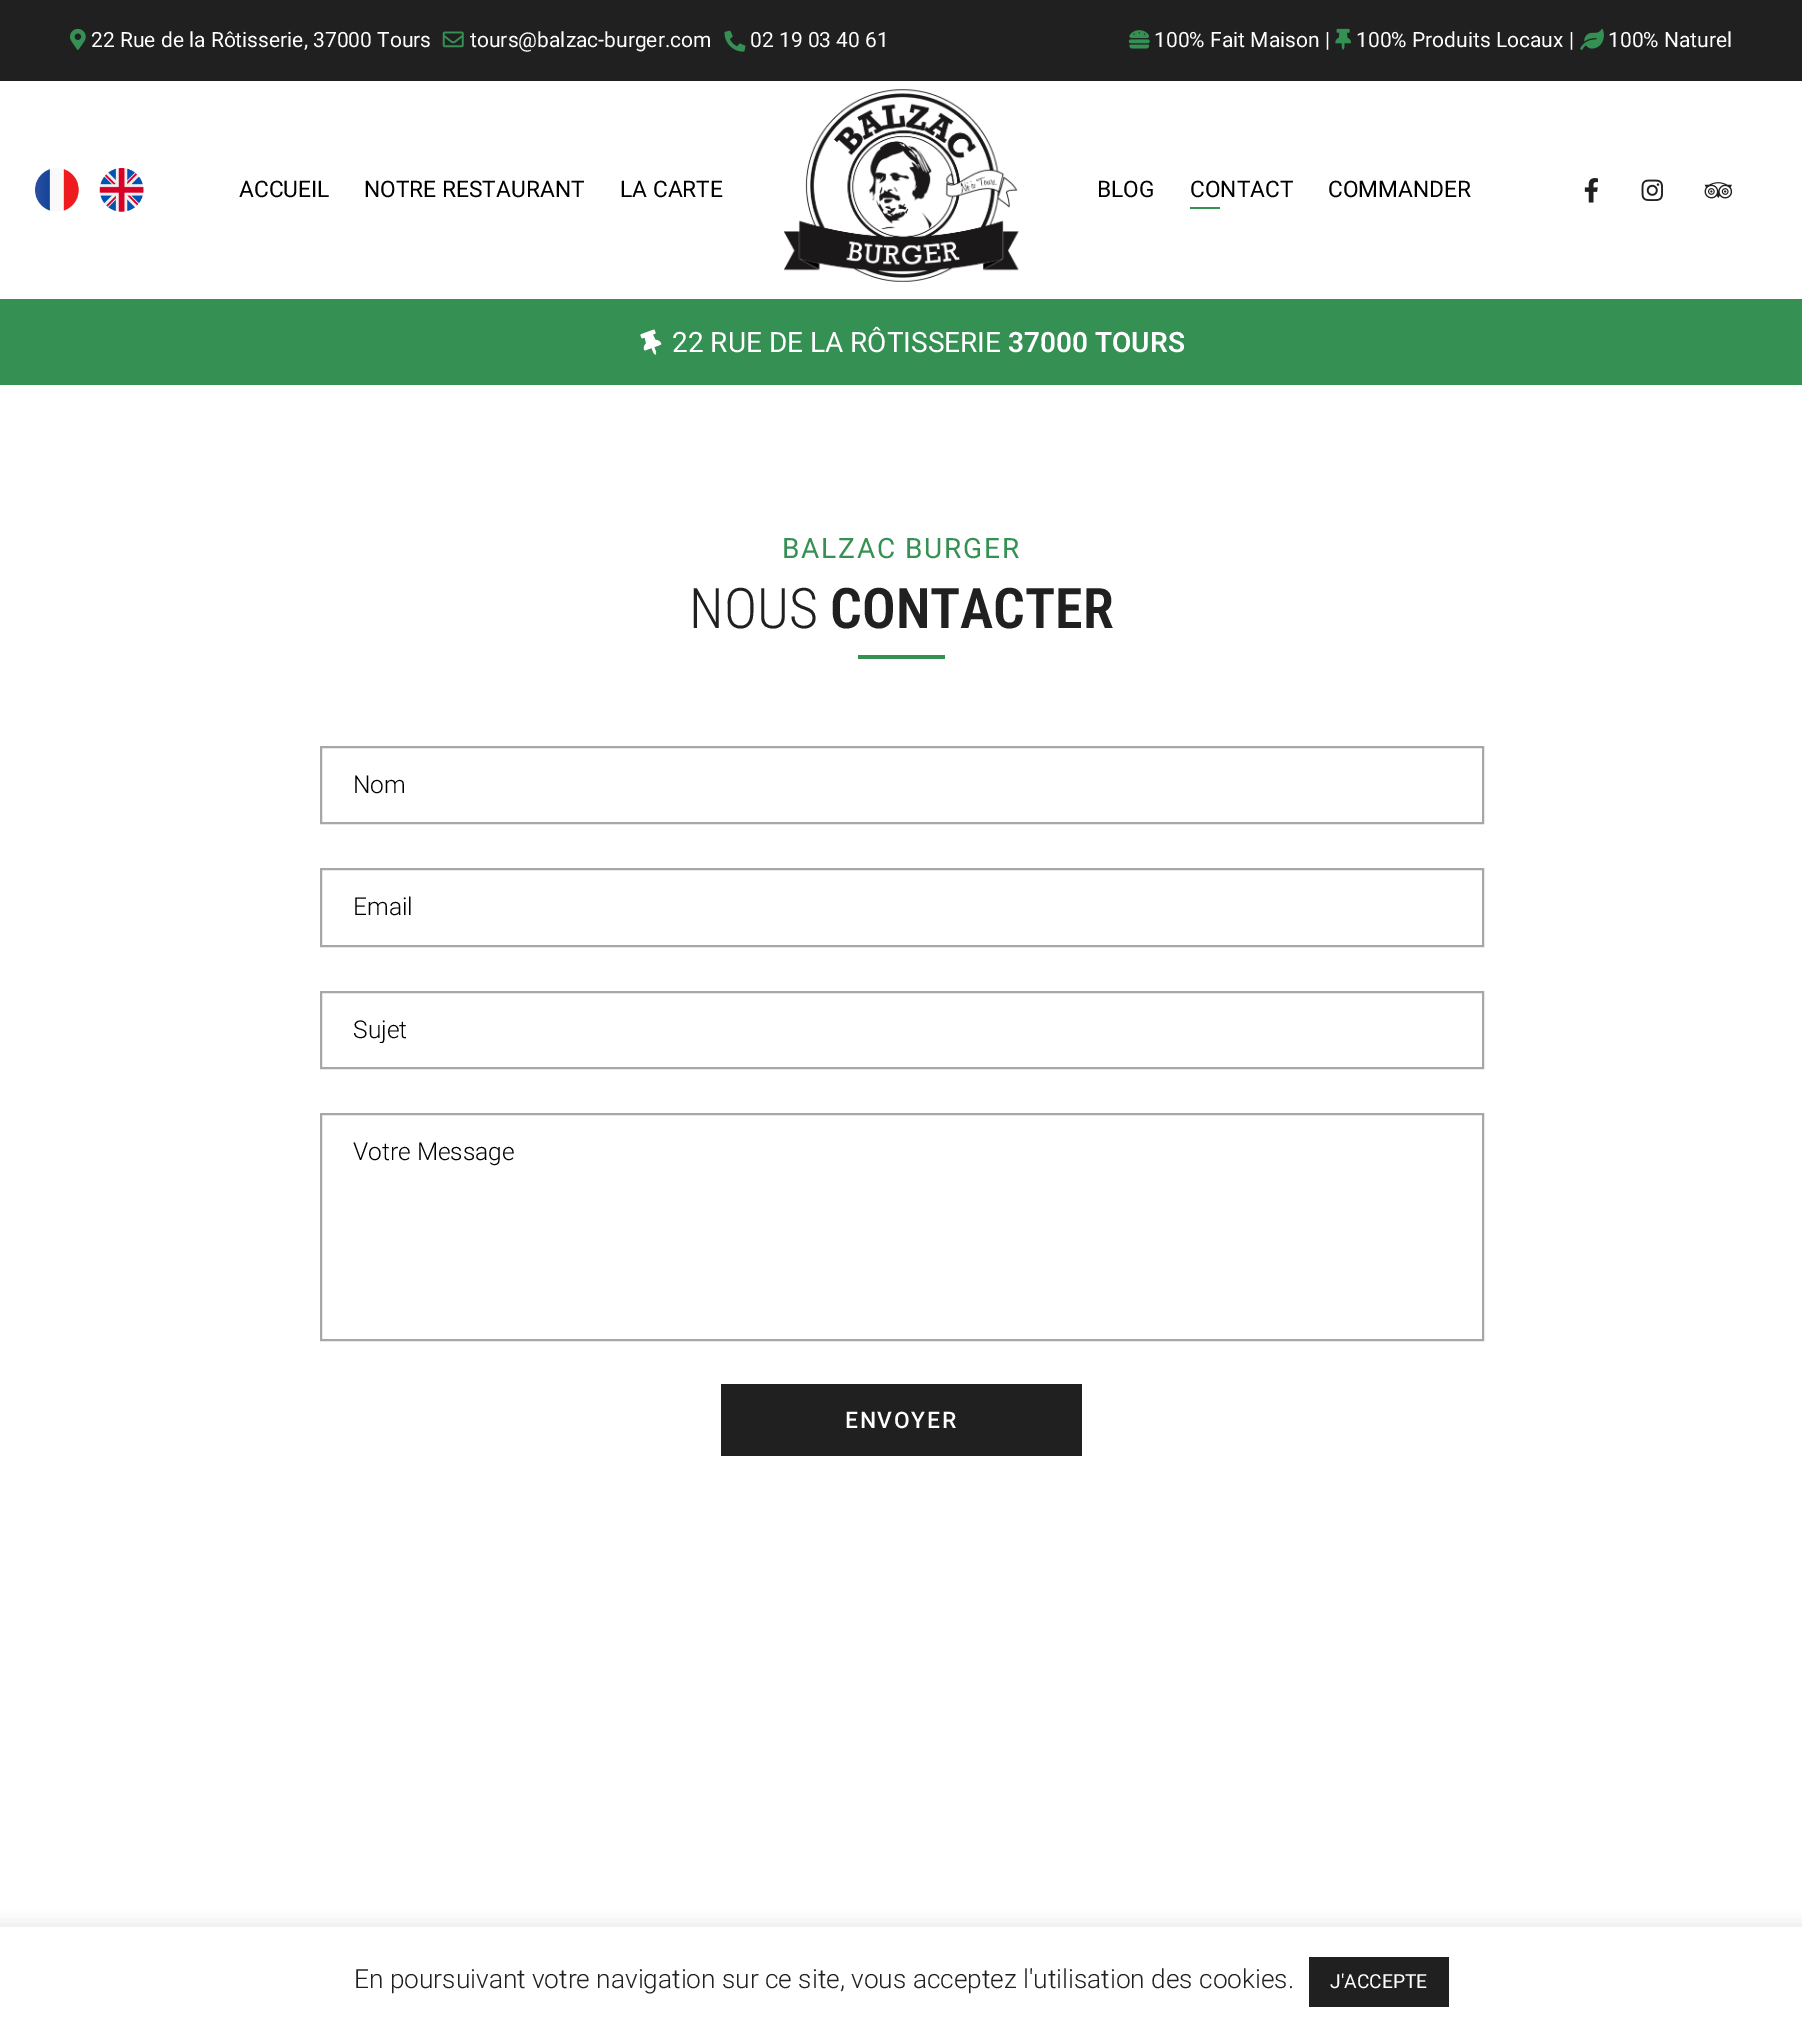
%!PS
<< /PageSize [1802 2027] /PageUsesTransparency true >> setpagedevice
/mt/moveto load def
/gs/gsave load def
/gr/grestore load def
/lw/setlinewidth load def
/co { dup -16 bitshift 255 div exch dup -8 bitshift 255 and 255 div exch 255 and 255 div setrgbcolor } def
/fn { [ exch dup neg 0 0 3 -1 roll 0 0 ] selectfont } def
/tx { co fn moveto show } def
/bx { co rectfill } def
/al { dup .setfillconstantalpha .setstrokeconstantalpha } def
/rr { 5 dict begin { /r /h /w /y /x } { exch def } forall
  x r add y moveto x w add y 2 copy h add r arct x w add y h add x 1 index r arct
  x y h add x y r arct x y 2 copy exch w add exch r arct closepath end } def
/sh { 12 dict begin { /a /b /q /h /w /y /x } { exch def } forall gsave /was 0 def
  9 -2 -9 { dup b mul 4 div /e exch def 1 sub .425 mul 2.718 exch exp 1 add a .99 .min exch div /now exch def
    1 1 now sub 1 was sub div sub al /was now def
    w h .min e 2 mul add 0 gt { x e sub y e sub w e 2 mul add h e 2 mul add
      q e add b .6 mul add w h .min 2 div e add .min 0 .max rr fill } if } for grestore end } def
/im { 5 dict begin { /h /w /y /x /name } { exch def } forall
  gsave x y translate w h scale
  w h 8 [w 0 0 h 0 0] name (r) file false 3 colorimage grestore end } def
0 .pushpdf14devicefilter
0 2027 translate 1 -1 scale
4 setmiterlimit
0 0 1802 2027 16#FFFFFF bx
0 0 1802 81 16#202020 bx
(media/1.raw) 70 28 16 22 im
(media/2.raw) 442 31 22 17 im
(media/3.raw) 724 30 22 22 im
(media/4.raw) 1128 30 22 19 im
(media/5.raw) 1335 28 16 22 im
(media/6.raw) 1580 28 24 22 im
(media/7.raw) 35 168 44 44 im
(media/8.raw) 99 168 45 44 im
(media/9.raw) 784 89 235 193 im
1190 207 30 2 16#359053 bx
(media/10.raw) 1584 178 14 25 im
(media/11.raw) 1641 179 22 22 im
(media/12.raw) 1704 182 29 17 im
0 299 1802 86 16#359053 bx
(media/13.raw) 640 329 22 26 im
858 655 87 4 16#359053 bx
16#A7A7A7 co
2 lw
321 747 1162 76 rectstroke
321 869 1162 77 rectstroke
321 992 1162 76 rectstroke
321 1114 1162 226 rectstroke
721 1384 361 72 16#202020 bx
gs
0 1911 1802 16 rectclip
16#ACABAB co
0 1925 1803 102 0 9 .3 sh
gr
1309 1957 140 50 16#202020 bx
(22 Rue de la Rôtisserie, 37000 Tours) 91 47 /Roboto-Regular 21 16#FFFFFF tx
(tours@balzac-burger.com) 470 47 /Roboto-Regular 21 16#FFFFFF tx
(02 19 03 40 61) 750 47 /Roboto-Regular 21 16#FFFFFF tx
(100% Fait Maison |) 1154 47 /Roboto-Regular 21 16#FFFFFF tx
(100% Produits Locaux |) 1356 47 /Roboto-Regular 21 16#FFFFFF tx
(100% Naturel) 1608 47 /Roboto-Regular 21 16#FFFFFF tx
(ACCUEIL) 239 197 /Roboto-Regular 22.75 16#000000 tx
(NOTRE RESTAURANT) 364 197 /Roboto-Regular 22.75 16#000000 tx
(LA CARTE) 620 197 /Roboto-Regular 22.75 16#000000 tx
(BLOG) 1097 197 /Roboto-Regular 22.75 16#000000 tx
(CONTACT) 1190 197 /Roboto-Regular 22.75 16#000000 tx
(COMMANDER) 1328 197 /Roboto-Regular 22.75 16#000000 tx
(22 RUE DE LA RÔTISSERIE) 672 352 /Roboto-Regular 28 16#FFFFFF tx
(37000 TOURS) 1008 352 /Roboto-SemiBold 28 16#FFFFFF tx
/Roboto-Regular 28 fn
16#359053 co
782 558 mt 1.75 0 (BALZAC BURGER) ashow
(NOUS) 689 628 /RobotoCondensed-Light 56 16#202020 tx
(CONTACTER) 830 628 /RobotoCondensed-SemiBold 56 16#202020 tx
(Nom) 353 793 /Roboto-Light 24.5 16#000000 tx
(Email) 353 915 /Roboto-Light 24.5 16#000000 tx
gs
354 1015 1097 28 rectclip
(Sujet) 353 1038 /Roboto-Light 24.5 16#000000 tx
gr
(Votre Message) 353 1160 /Roboto-Light 24.5 16#000000 tx
/Roboto-Medium 22.75 fn
16#FFFFFF co
845 1428 mt 1.75 0 (ENVOYER) ashow
(En poursuivant votre navigation sur ce site, vous acceptez l'utilisation des cookies.) 354 1988 /Roboto-Light 26.25 16#202020 tx
(J'ACCEPTE) 1330 1988 /Roboto-Regular 19.25 16#FFFFFF tx
.poppdf14devicefilter showpage
